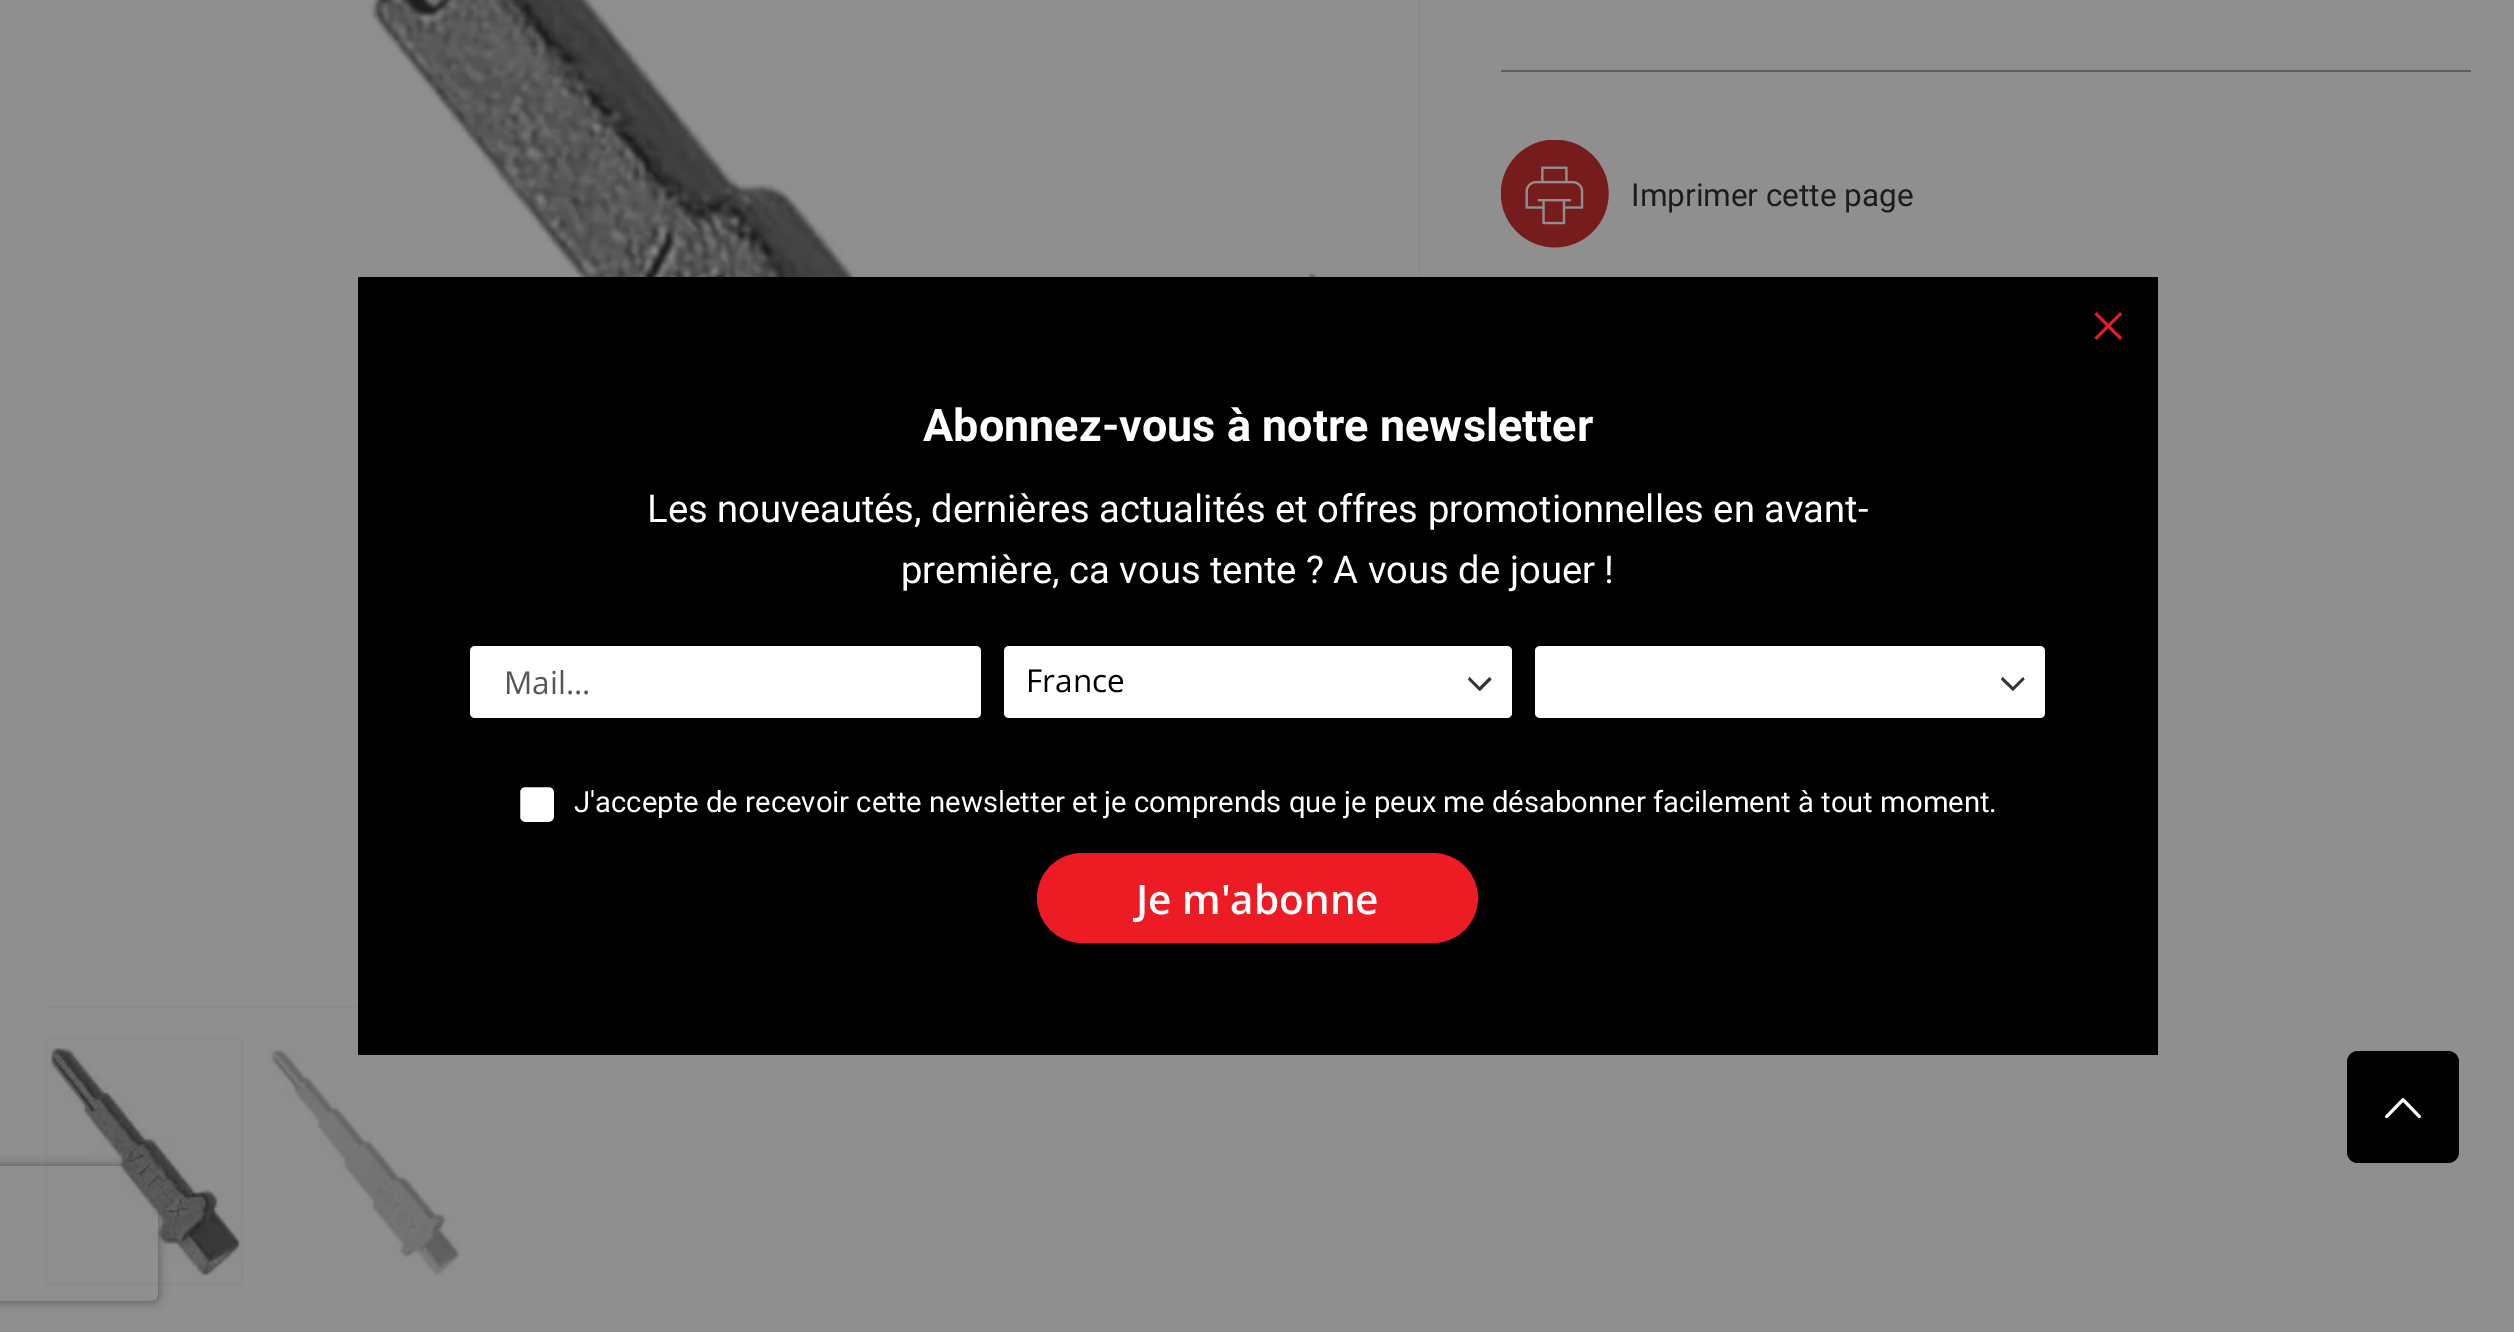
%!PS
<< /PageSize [2514 1332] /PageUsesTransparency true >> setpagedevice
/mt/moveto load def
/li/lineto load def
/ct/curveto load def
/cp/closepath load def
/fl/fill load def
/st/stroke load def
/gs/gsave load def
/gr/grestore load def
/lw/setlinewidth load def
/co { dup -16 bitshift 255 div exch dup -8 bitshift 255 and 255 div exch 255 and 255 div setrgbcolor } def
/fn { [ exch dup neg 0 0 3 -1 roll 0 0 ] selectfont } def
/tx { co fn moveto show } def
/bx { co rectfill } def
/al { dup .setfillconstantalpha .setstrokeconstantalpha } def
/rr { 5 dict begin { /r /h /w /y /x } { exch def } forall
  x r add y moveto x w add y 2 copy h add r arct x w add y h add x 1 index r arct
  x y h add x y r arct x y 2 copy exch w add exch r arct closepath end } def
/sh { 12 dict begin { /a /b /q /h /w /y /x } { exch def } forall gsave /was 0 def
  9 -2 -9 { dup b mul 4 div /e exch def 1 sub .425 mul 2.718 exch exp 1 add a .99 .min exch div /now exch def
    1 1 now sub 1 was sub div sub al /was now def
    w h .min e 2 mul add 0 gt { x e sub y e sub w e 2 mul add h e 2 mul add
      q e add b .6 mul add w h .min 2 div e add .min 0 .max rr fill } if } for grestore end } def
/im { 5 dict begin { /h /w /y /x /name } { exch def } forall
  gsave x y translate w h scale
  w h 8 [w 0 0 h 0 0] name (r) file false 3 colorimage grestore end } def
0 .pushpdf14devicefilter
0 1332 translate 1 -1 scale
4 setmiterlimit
0 0 2514 1332 16#8F8F8F bx
gs
45 0 1382 1015 rectclip
16#8B8B8B co
2 lw
39 -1 1380 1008 rectstroke
gr
(media/1.raw) 370 0 938 277 im
(media/2.raw) 1308 273 10 4 im
16#8B8B8B co
2 lw
46 1038 196 246 rectstroke
(media/3.raw) 47 1048 194 235 im
(media/4.raw) 268 1048 193 228 im
1501 70 970 2 16#5F5E5E bx
(media/5.raw) 1501 140 108 108 im
358 277 1800 778 16#000000 bx
(media/6.raw) 2094 312 29 28 im
16#FFFFFF co
470 646 511 72 5 rr fl
1004 646 508 72 5 rr fl
16#333333 co
1480 691 mt 1491.5 679.5 li 1489.5 677 li 1479.5 687 li 1469.5 677 li 1468 679.5 li 1479.5 691 li cp eofill
16#FFFFFF co
1535 646 510 72 5 rr fl
16#333333 co
2013 691 mt 2024.5 679.5 li 2023 677 li 2013 687 li 2002.5 677 li 2001 679.5 li cp eofill
16#FFFFFF co
519 786 36 37 6 rr gs fl gr
16#000000 co
st
16#ED1C24 co
1039.5 855.5 436 85 42.5 rr gs fl gr
5 lw
st
16#000000 co
2347 1051 112 112 11 rr fl
(media/7.raw) 2385 1098 36 20 im
gs
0 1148 mt 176 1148 li 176 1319 li 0 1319 li cp -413 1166 mt 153 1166 li 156 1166 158 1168 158 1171 ct 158 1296 li 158 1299 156 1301 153 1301 ct -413 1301 li -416 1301 -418 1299 -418 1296 ct -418 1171 li -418 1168 -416 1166 -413 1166 ct cp eoclip newpath
16#565656 co
-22 1166 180 135 5 5.5 1 sh
gr
(Imprimer cette page) 1631 206 /Roboto-Regular 31.5 16#1C1C1C tx
(Abonnez-vous à notre newsletter) 923 441 /Roboto-Bold 45 16#FFFFFF tx
(Les nouveautés, dernières actualités et offres promotionnelles en avant-) 647 522 /Roboto-Regular 38.25 16#FFFFFF tx
(première, ca vous tente ? A vous de jouer !) 901 583 /Roboto-Regular 38.25 16#FFFFFF tx
(Mail...) 504 694 /OpenSans-Regular 31.5 16#575757 tx
(France) 1026 692 /OpenSans-Regular 31.5 16#000000 tx
(J'accepte de recevoir cette newsletter et je comprends que je peux me désabonner facilement à tout moment.) 574 812 /Roboto-Regular 29.25 16#FFFFFF tx
(Je m'abonne) 1136 914 /OpenSans-SemiBold 40.5 16#FFFFFF tx
.poppdf14devicefilter showpage
